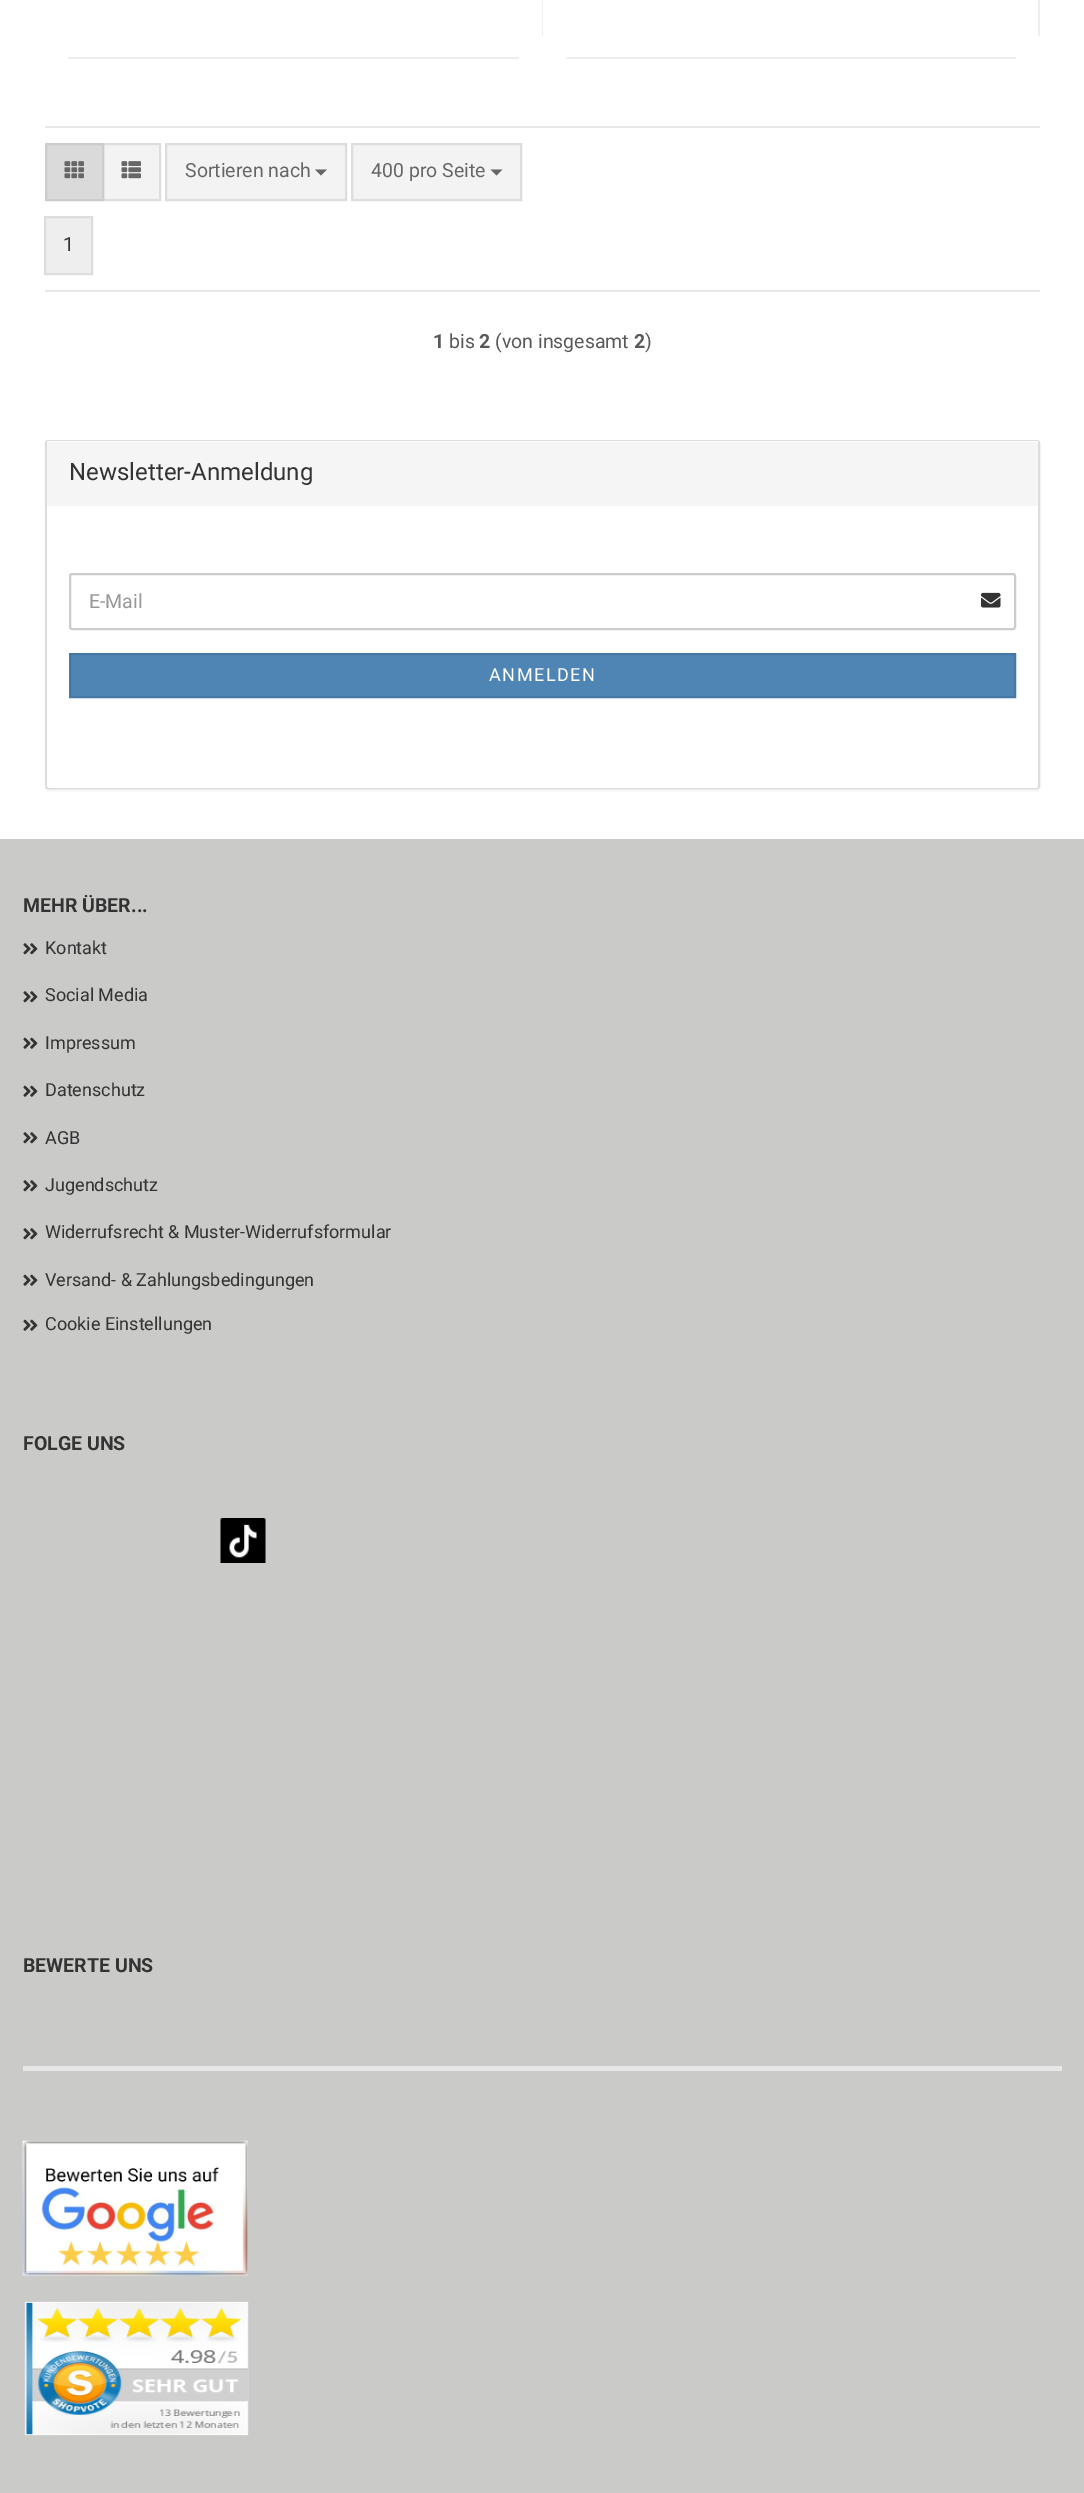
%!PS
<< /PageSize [1084 2493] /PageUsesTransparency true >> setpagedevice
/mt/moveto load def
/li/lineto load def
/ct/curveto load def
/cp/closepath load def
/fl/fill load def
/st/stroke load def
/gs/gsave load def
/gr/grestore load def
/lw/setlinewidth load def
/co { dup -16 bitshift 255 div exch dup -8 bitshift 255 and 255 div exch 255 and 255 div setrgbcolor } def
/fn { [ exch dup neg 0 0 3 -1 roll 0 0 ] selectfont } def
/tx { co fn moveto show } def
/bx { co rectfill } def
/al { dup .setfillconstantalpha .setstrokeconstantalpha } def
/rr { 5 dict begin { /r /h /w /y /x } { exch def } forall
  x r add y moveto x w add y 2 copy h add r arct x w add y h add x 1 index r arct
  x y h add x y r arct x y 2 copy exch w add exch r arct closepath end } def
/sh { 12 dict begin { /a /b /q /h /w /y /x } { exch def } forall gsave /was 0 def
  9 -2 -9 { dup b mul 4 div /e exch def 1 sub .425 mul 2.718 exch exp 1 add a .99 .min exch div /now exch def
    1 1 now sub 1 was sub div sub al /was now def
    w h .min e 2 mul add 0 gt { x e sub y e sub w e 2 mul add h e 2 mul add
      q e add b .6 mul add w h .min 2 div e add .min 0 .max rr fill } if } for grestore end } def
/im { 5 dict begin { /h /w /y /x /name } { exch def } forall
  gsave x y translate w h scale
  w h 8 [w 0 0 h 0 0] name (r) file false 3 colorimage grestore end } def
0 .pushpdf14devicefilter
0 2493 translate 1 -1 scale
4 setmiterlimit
0 0 1084 2493 16#FFFFFF bx
542 0 1 36 16#EEEEEE bx
68 57 451 2 16#EEEEEE bx
1038 0 2 36 16#EEEEEE bx
566 57 450 2 16#EEEEEE bx
45 126 995 2 16#E7E7E7 bx
45 290 995 2 16#E7E7E7 bx
16#F3F3F3 co
103 144 mt 160 144 li 160 200 li 103 200 li cp gs fl gr
16#DDDDDD co
2 lw
st
16#DADADA co
46 144 mt 103 144 li 103 200 li 46 200 li cp gs fl gr
16#CCCCCC co
st
(media/1.raw) 64 161 20 18 im
(media/2.raw) 121 161 20 18 im
16#F3F3F3 co
166 144 mt 346 144 li 346 200 li 166 200 li cp gs fl gr
16#DDDDDD co
st
16#666666 co
315 169.5 mt 327 169.5 li 321 175.5 li cp fl
16#F3F3F3 co
352 144 mt 521 144 li 521 200 li 352 200 li cp gs fl gr
16#DDDDDD co
st
16#666666 co
490.5 169.5 mt 502.5 169.5 li 496.5 175.5 li cp fl
16#EEEEEE co
45 217 mt 92 217 li 92 274 li 45 274 li cp gs fl gr
16#DDDDDD co
st
16#000000 co
45 441 995 350 3 1 .05 sh
16#FFFFFF co
46 441 993 347 2 rr gs fl gr
16#DDDDDD co
st
16#F5F5F5 co
48.5 441 mt 1036.5 441 li 1037.5 441 1038 441.5 1038 442.5 ct 1038 506 li 47 506 li 47 442.5 li 47 441.5 47.5 441 48.5 441 ct cp fl
16#FFFFFF co
48 442 mt 1036 442 li 1037 442 1038 443 1038 444 ct 1038 442 li 1036 441 li 48 441 li 48 441 47 442 47 442 ct cp fl
47 506 mt 1038 506 li 1038 785 li 1038 786.5 1036.5 788 1035 788 ct 50 788 li 48.5 788 47 786.5 47 785 ct cp fl
16#CCCCCC co
70 574 945 55 2 rr st
(media/3.raw) 981 592 20 16 im
16#4E85B5 co
70 654 mt 1015 654 li 1015 697 li 70 697 li cp gs fl gr
16#4578A5 co
st
0 839 1084 1654 16#CACAC8 bx
(media/4.raw) 23 943 15 12 im
(media/4.raw) 23 991 15 12 im
(media/5.raw) 23 1037 15 12 im
(media/5.raw) 23 1085 15 12 im
(media/4.raw) 23 1132 15 12 im
(media/4.raw) 23 1180 15 12 im
(media/4.raw) 23 1228 15 12 im
(media/5.raw) 23 1274 15 12 im
(media/5.raw) 23 1319 15 12 im
(media/6.raw) 220 1518 46 45 im
23 2066 1039 5 16#E7E7E7 bx
(media/7.raw) 22 2140 226 136 im
(media/8.raw) 24 2301 225 135 im
(Sortieren nach) 185 177 /Roboto-Regular 19.5 16#666666 tx
(400 pro Seite) 371 177 /Roboto-Regular 19.5 16#666666 tx
(1) 63 251 /Roboto-Regular 19.5 16#333333 tx
(1) 433 348 /Roboto-Bold 19.5 16#595959 tx
(bis) 449 348 /Roboto-Regular 19.5 16#595959 tx
(2) 479 348 /Roboto-Bold 19.5 16#595959 tx
(\(von insgesamt) 495 348 /Roboto-Regular 19.5 16#595959 tx
(2) 634 348 /Roboto-Bold 19.5 16#595959 tx
(\)) 645 348 /Roboto-Regular 19.5 16#595959 tx
(Newsletter-Anmeldung) 69 480 /Roboto-Regular 24 16#333333 tx
(E-Mail) 89 608 /Roboto-Regular 19.5 16#999999 tx
/Roboto-Regular 18 fn
16#FFFFFF co
489 681 mt 1.5 0 (ANMELDEN) ashow
(MEHR ÜBER...) 23 912 /Roboto-Bold 19.5 16#333333 tx
(Kontakt) 45 954 /Roboto-Regular 18 16#333333 tx
(Social Media) 45 1001 /Roboto-Regular 18 16#333333 tx
(Impressum) 45 1049 /Roboto-Regular 18 16#333333 tx
(Datenschutz) 45 1096 /Roboto-Regular 18 16#333333 tx
(AGB) 45 1144 /Roboto-Regular 18 16#333333 tx
(Jugendschutz) 45 1191 /Roboto-Regular 18 16#333333 tx
(Widerrufsrecht & Muster-Widerrufsformular) 45 1238 /Roboto-Regular 18 16#333333 tx
(Versand- & Zahlungsbedingungen) 45 1286 /Roboto-Regular 18 16#333333 tx
(Cookie Einstellungen) 45 1330 /Roboto-Regular 18 16#333333 tx
(FOLGE UNS) 23 1450 /Roboto-Bold 19.5 16#333333 tx
(BEWERTE UNS) 23 1972 /Roboto-Bold 19.5 16#333333 tx
.poppdf14devicefilter showpage
